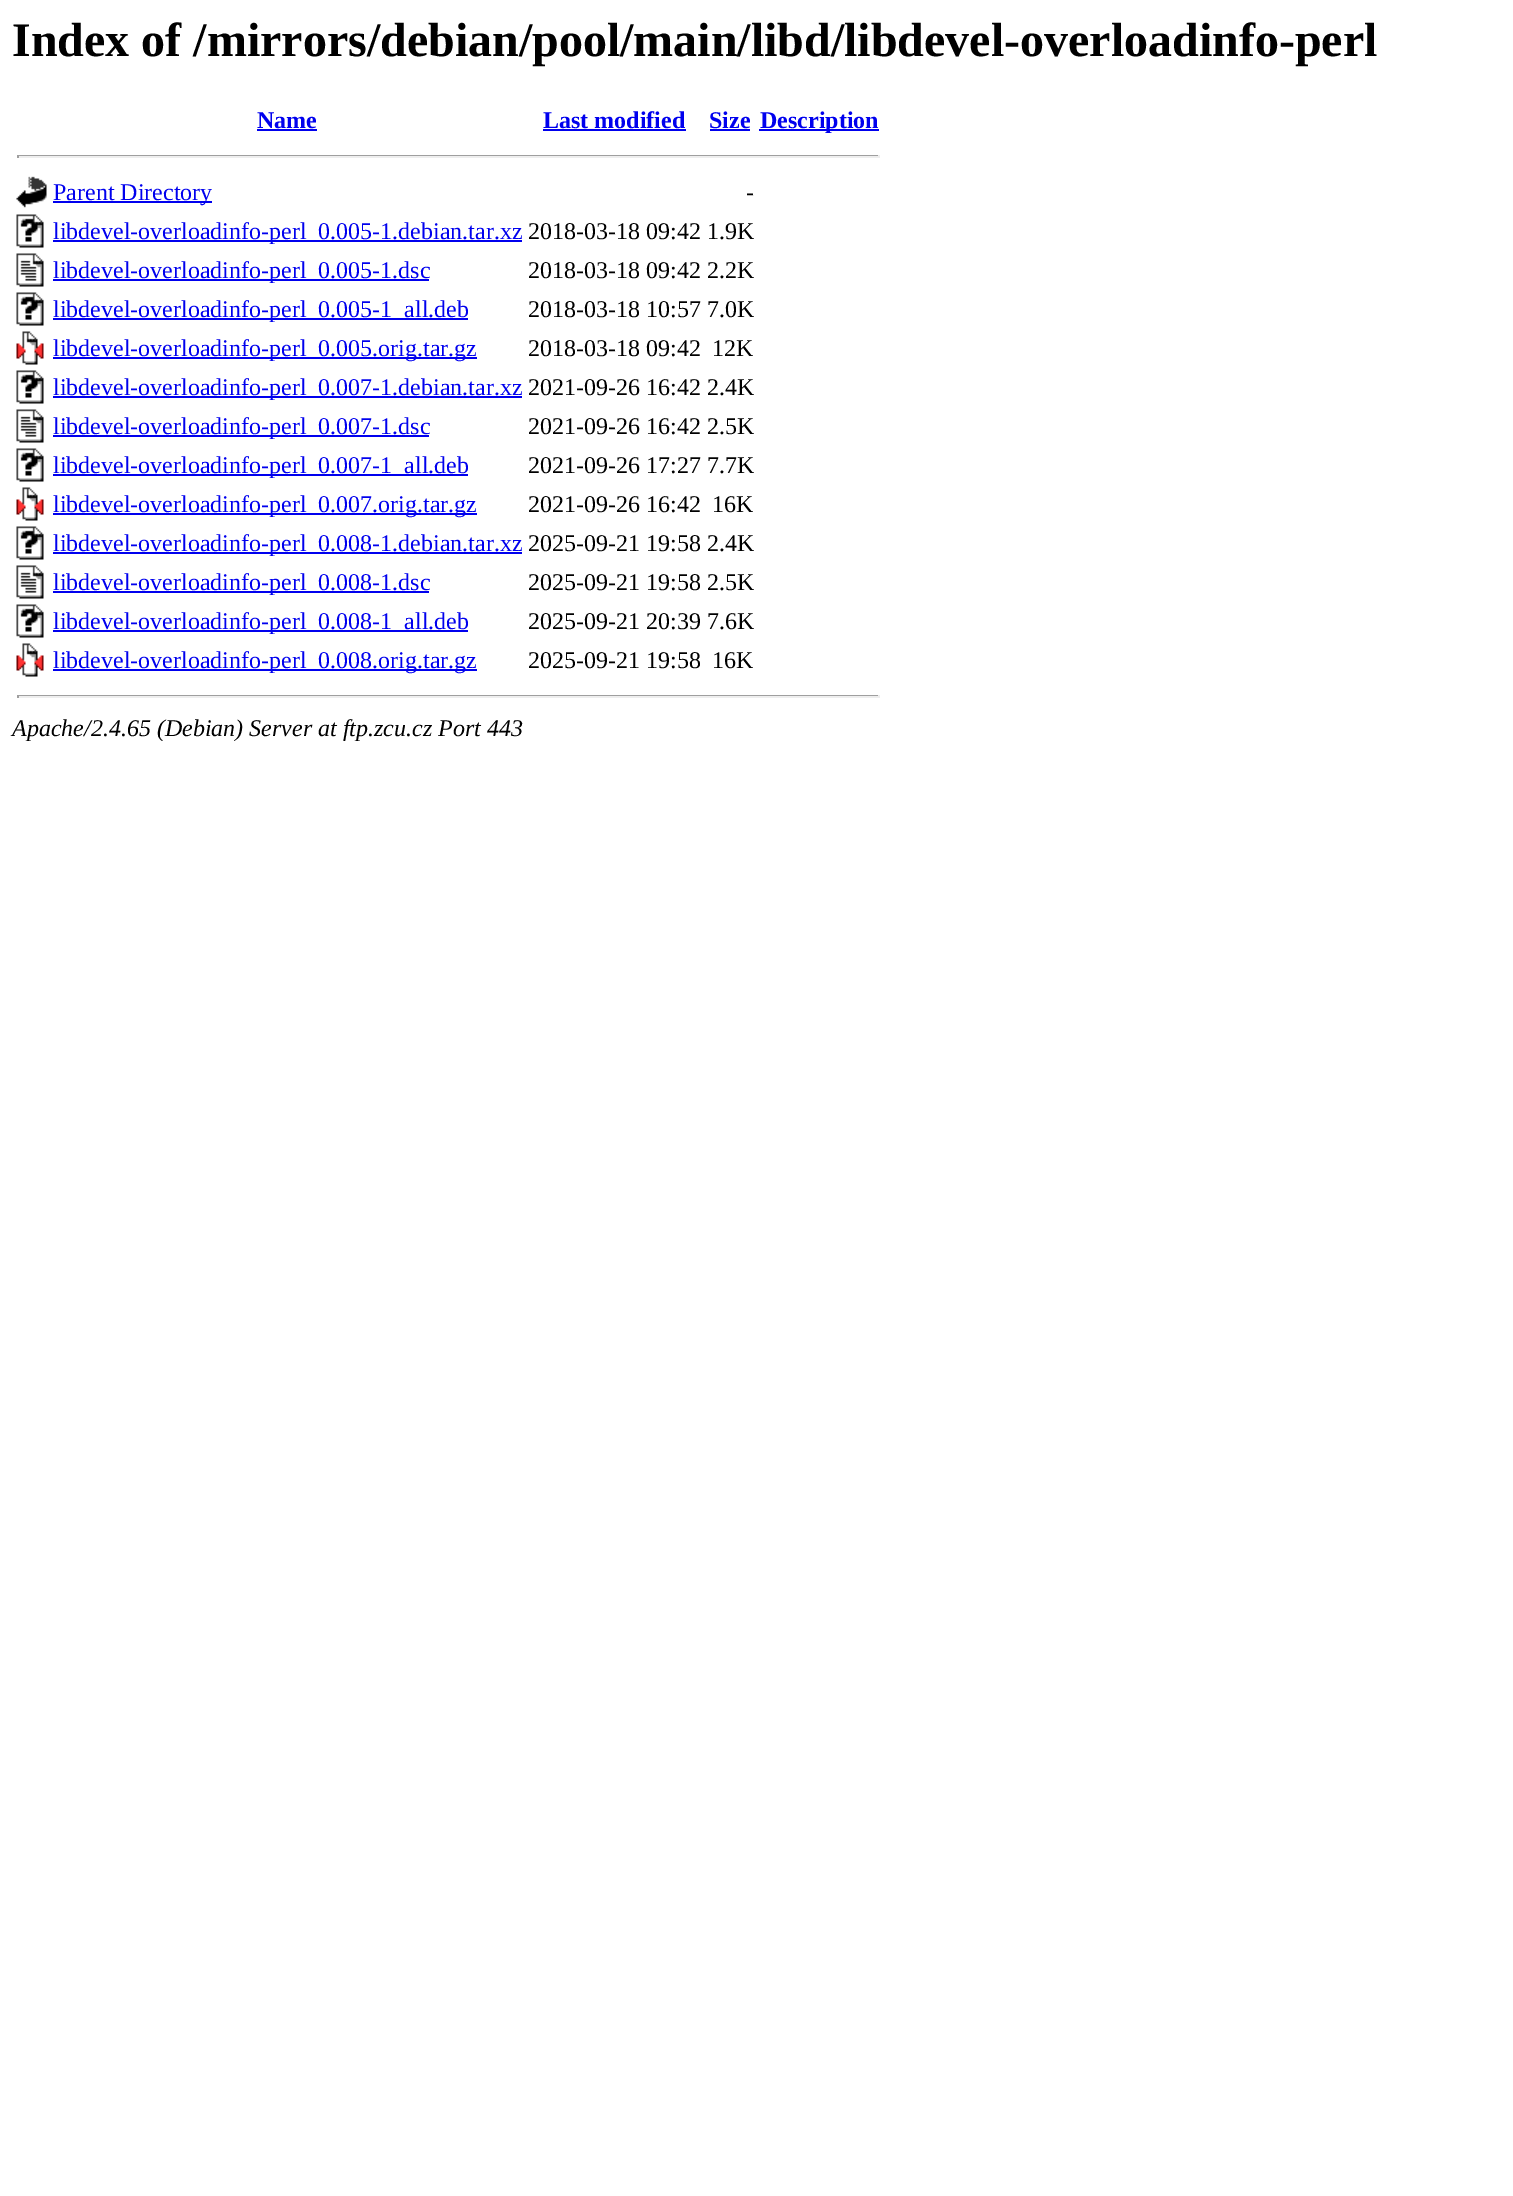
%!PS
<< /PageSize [1513 2196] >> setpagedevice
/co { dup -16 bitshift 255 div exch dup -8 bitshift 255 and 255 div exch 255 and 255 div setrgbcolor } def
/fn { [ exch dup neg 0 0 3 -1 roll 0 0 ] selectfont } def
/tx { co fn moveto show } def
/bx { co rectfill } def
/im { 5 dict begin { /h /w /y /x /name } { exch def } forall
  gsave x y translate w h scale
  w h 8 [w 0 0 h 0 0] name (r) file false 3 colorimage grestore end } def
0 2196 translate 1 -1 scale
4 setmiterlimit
0 0 1513 2196 16#FFFFFF bx
257 129 60 2 16#0000EE bx
543 129 143 2 16#0000EE bx
710 129 40 2 16#0000EE bx
759 129 120 2 16#0000EE bx
17 155 862 1 16#9F9F9F bx
878 155 2 3 16#EEEEEE bx
17 156 862 2 16#EEEEEE bx
17 155 2 3 16#9F9F9F bx
(media/1.raw) 16 176 31 32 im
53 201 159 2 16#0000EE bx
(media/2.raw) 16 214 28 34 im
53 240 469 2 16#0000EE bx
(media/3.raw) 16 253 28 34 im
53 279 376 2 16#0000EE bx
(media/2.raw) 16 292 28 34 im
53 318 415 2 16#0000EE bx
(media/4.raw) 16 331 28 34 im
53 357 424 2 16#0000EE bx
(media/2.raw) 16 370 28 34 im
53 396 469 2 16#0000EE bx
(media/3.raw) 16 409 28 34 im
53 435 376 2 16#0000EE bx
(media/2.raw) 16 448 28 34 im
53 474 415 2 16#0000EE bx
(media/4.raw) 16 487 28 34 im
53 513 424 2 16#0000EE bx
(media/2.raw) 16 526 28 34 im
53 552 469 2 16#0000EE bx
(media/3.raw) 16 565 28 34 im
53 591 376 2 16#0000EE bx
(media/2.raw) 16 604 28 34 im
53 630 415 2 16#0000EE bx
(media/4.raw) 16 643 28 34 im
53 669 424 2 16#0000EE bx
17 695 862 1 16#9F9F9F bx
878 695 2 3 16#EEEEEE bx
17 696 862 2 16#EEEEEE bx
17 695 2 3 16#9F9F9F bx
(Index of /mirrors/debian/pool/main/libd/libdevel-overloadinfo-perl) 12 56 /LiberationSerif-Bold 48 16#000000 tx
(Name) 257 128 /LiberationSerif-Bold 24 16#0000EE tx
(Last modified) 543 128 /LiberationSerif-Bold 24 16#0000EE tx
(Size) 709 128 /LiberationSerif-Bold 24 16#0000EE tx
(Description) 760 128 /LiberationSerif-Bold 24 16#0000EE tx
(Parent Directory) 53 200 /LiberationSerif-Regular 24 16#0000EE tx
(-) 746 200 /LiberationSerif-Regular 24 16#000000 tx
(libdevel-overloadinfo-perl_0.005-1.debian.tar.xz) 53 239 /LiberationSerif-Regular 24 16#0000EE tx
(2018-03-18 09:42 1.9K) 528 239 /LiberationSerif-Regular 24 16#000000 tx
(libdevel-overloadinfo-perl_0.005-1.dsc) 53 278 /LiberationSerif-Regular 24 16#0000EE tx
(2018-03-18 09:42 2.2K) 528 278 /LiberationSerif-Regular 24 16#000000 tx
(libdevel-overloadinfo-perl_0.005-1_all.deb) 53 317 /LiberationSerif-Regular 24 16#0000EE tx
(2018-03-18 10:57 7.0K) 528 317 /LiberationSerif-Regular 24 16#000000 tx
(libdevel-overloadinfo-perl_0.005.orig.tar.gz) 53 356 /LiberationSerif-Regular 24 16#0000EE tx
(2018-03-18 09:42) 528 356 /LiberationSerif-Regular 24 16#000000 tx
(12K) 712 356 /LiberationSerif-Regular 24 16#000000 tx
(libdevel-overloadinfo-perl_0.007-1.debian.tar.xz) 53 395 /LiberationSerif-Regular 24 16#0000EE tx
(2021-09-26 16:42 2.4K) 528 395 /LiberationSerif-Regular 24 16#000000 tx
(libdevel-overloadinfo-perl_0.007-1.dsc) 53 434 /LiberationSerif-Regular 24 16#0000EE tx
(2021-09-26 16:42 2.5K) 528 434 /LiberationSerif-Regular 24 16#000000 tx
(libdevel-overloadinfo-perl_0.007-1_all.deb) 53 473 /LiberationSerif-Regular 24 16#0000EE tx
(2021-09-26 17:27 7.7K) 528 473 /LiberationSerif-Regular 24 16#000000 tx
(libdevel-overloadinfo-perl_0.007.orig.tar.gz) 53 512 /LiberationSerif-Regular 24 16#0000EE tx
(2021-09-26 16:42) 528 512 /LiberationSerif-Regular 24 16#000000 tx
(16K) 712 512 /LiberationSerif-Regular 24 16#000000 tx
(libdevel-overloadinfo-perl_0.008-1.debian.tar.xz) 53 551 /LiberationSerif-Regular 24 16#0000EE tx
(2025-09-21 19:58 2.4K) 528 551 /LiberationSerif-Regular 24 16#000000 tx
(libdevel-overloadinfo-perl_0.008-1.dsc) 53 590 /LiberationSerif-Regular 24 16#0000EE tx
(2025-09-21 19:58 2.5K) 528 590 /LiberationSerif-Regular 24 16#000000 tx
(libdevel-overloadinfo-perl_0.008-1_all.deb) 53 629 /LiberationSerif-Regular 24 16#0000EE tx
(2025-09-21 20:39 7.6K) 528 629 /LiberationSerif-Regular 24 16#000000 tx
(libdevel-overloadinfo-perl_0.008.orig.tar.gz) 53 668 /LiberationSerif-Regular 24 16#0000EE tx
(2025-09-21 19:58) 528 668 /LiberationSerif-Regular 24 16#000000 tx
(16K) 712 668 /LiberationSerif-Regular 24 16#000000 tx
(Apache/2.4.65 \(Debian\) Server at ftp.zcu.cz Port 443) 12 736 /LiberationSerif-Italic 24 16#000000 tx
showpage
